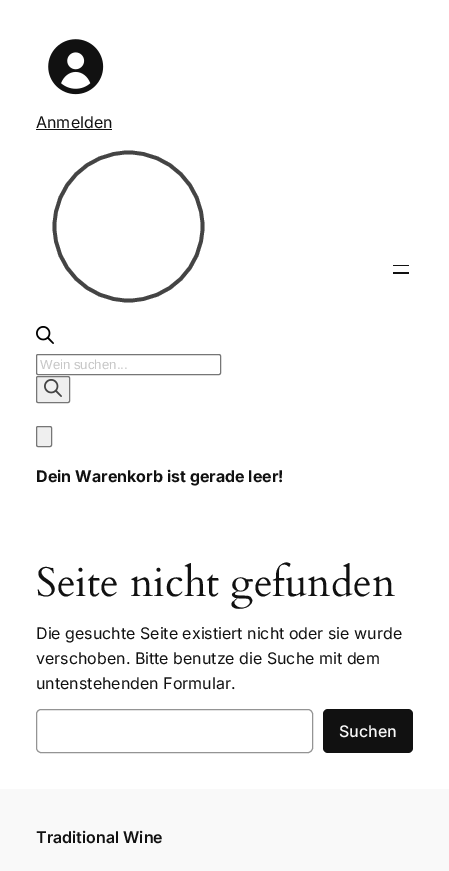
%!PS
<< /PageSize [449 871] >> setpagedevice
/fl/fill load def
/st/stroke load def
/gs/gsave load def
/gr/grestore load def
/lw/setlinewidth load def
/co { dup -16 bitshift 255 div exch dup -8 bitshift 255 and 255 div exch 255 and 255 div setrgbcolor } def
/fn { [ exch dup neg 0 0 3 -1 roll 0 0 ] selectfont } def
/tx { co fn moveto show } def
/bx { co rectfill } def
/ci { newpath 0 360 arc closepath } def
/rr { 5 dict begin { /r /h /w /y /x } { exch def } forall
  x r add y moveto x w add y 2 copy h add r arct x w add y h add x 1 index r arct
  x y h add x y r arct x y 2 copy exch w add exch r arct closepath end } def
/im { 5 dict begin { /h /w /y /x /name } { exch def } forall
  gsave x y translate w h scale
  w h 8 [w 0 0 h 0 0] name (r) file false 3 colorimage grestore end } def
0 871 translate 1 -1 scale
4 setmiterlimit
0 0 449 871 16#FFFFFF bx
(media/1.raw) 48 39 56 56 im
36 129 76 1 16#111111 bx
393 265 16 1 16#111111 bx
393 272 16 2 16#111111 bx
16#444444 co
3.7 lw
128.5 226.5 74 ci st
(media/2.raw) 36 326 18 18 im
16#767676 co
1 lw
36.5 354.5 184 20 1.5 rr st
16#EFEFEF co
36.5 376.5 33 26 1.5 rr gs fl gr
16#767676 co
st
(media/3.raw) 44 379 18 18 im
16#EFEFEF co
36.5 426.5 15 20 1.5 rr gs fl gr
16#767676 co
st
16#949494 co
36.5 709.5 276 43 4.5 rr st
16#111111 co
323 709 90 44 5 rr fl
0 789 449 82 16#F9F9F9 bx
(Anmelden) 36 128 /Inter-Regular 16 16#111111 tx
(Wein suchen...) 40 369 /LiberationSans-Regular 13.25 16#C7C7C7 tx
(Dein Warenkorb ist gerade leer!) 36 482 /Inter-Bold 16 16#111111 tx
(Seite nicht gefunden) 36 596 /Cardo-Regular 41.25 16#111111 tx
(Die gesuchte Seite existiert nicht oder sie wurde) 36 639 /Inter-Regular 16 16#111111 tx
(verschoben. Bitte benutze die Suche mit dem) 36 664 /Inter-Regular 16 16#111111 tx
(untenstehenden Formular.) 36 689 /Inter-Regular 16 16#111111 tx
(Suchen) 339 737 /Inter-Medium 16 16#F9F9F9 tx
(Traditional Wine) 36 843 /Inter-SemiBold 16 16#111111 tx
showpage
